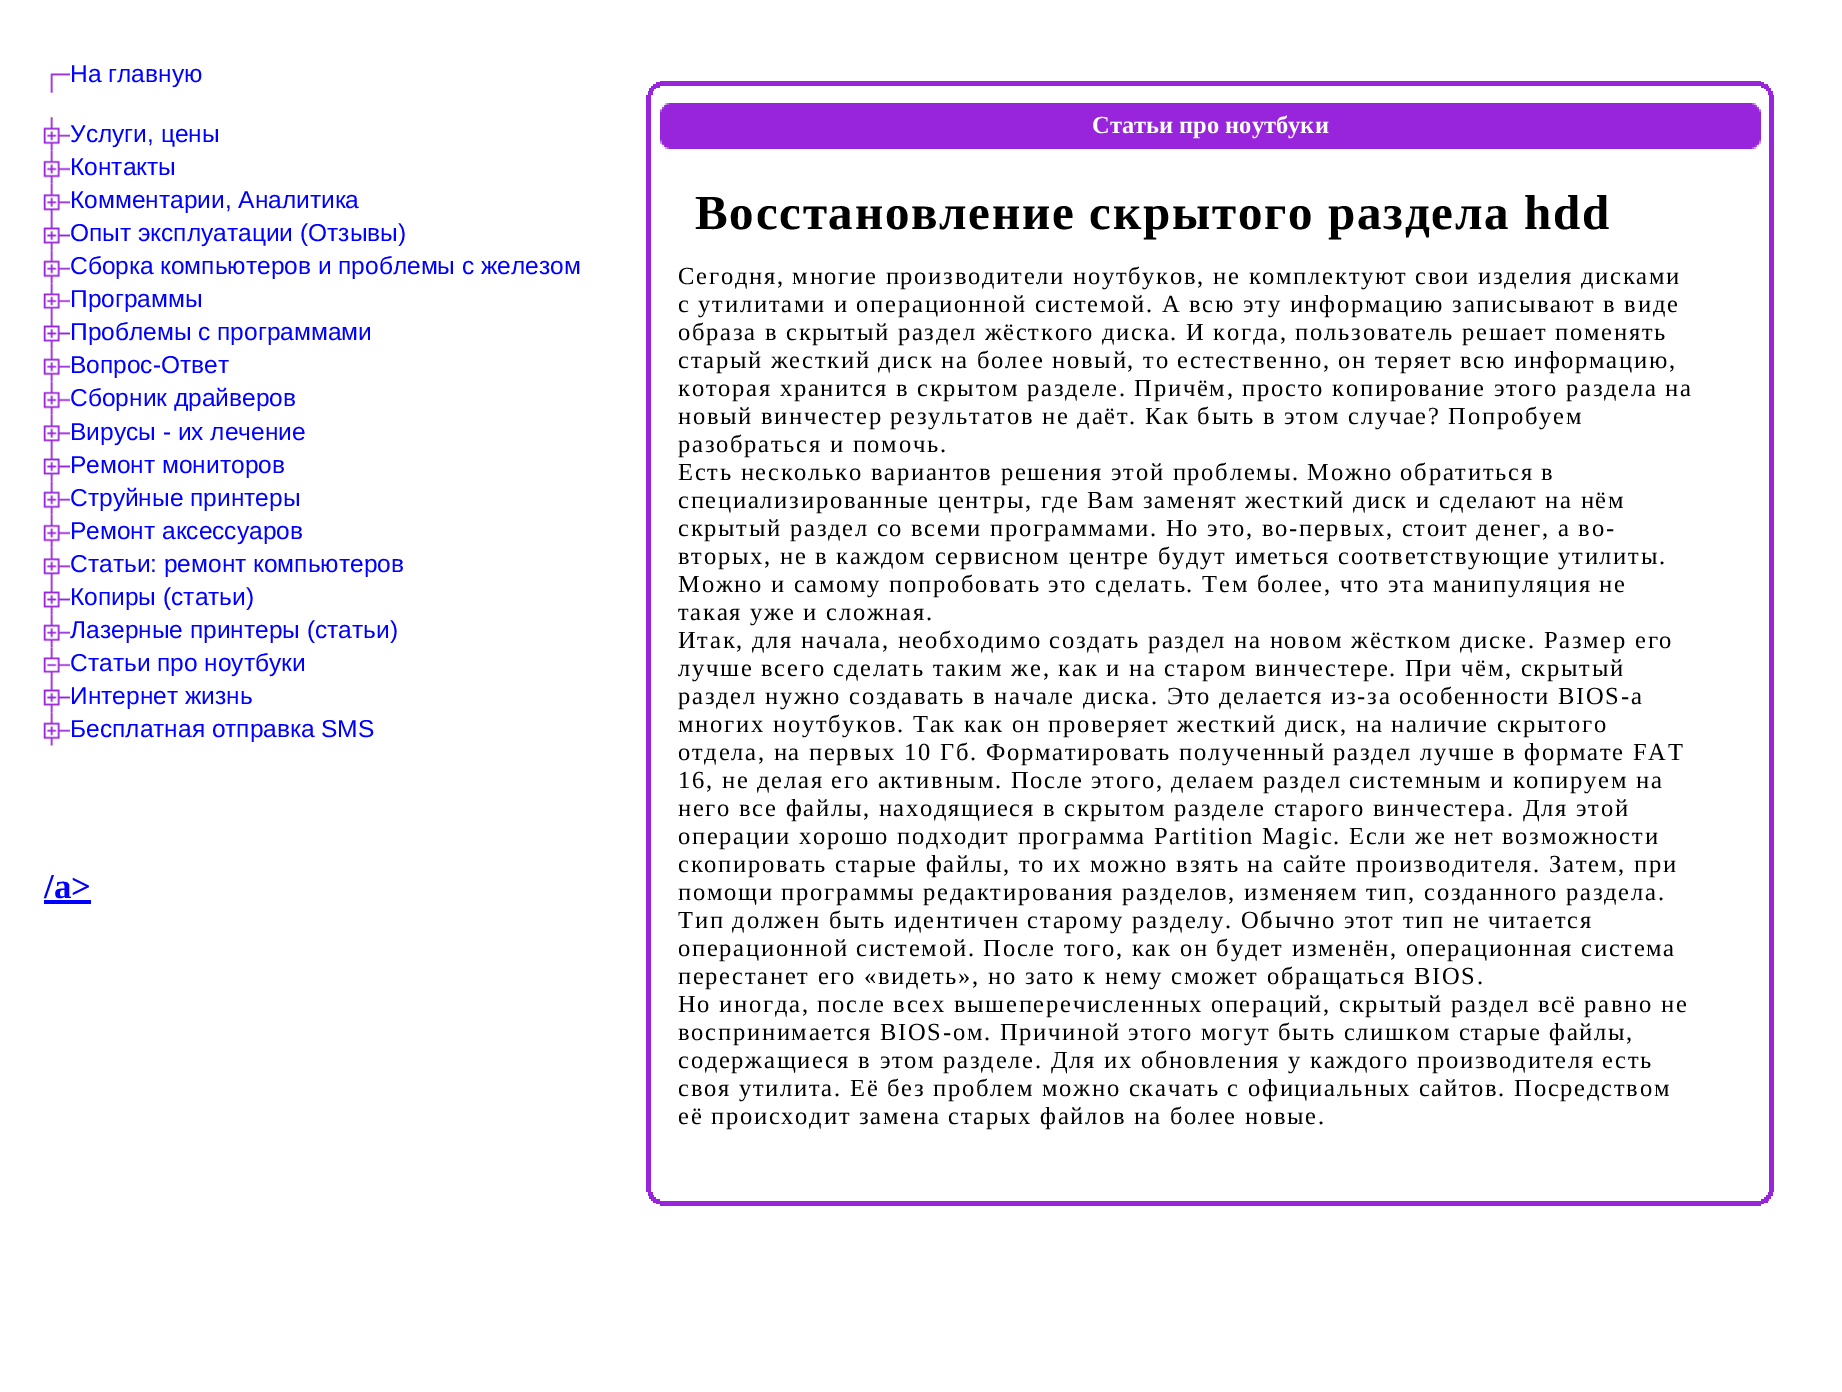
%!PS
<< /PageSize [1842 1392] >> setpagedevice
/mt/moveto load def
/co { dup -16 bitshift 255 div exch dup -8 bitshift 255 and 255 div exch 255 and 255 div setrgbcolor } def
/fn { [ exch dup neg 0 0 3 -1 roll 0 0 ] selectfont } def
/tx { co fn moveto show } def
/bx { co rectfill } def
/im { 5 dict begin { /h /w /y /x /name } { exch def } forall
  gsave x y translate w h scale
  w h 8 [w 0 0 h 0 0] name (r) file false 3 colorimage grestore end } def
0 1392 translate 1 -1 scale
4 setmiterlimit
0 0 1842 1392 16#FFFFFF bx
(media/1.raw) 50 73 47 20 im
70 73 27 3 16#FFFFFF bx
(media/2.raw) 43 117 34 34 im
70 134 7 3 16#FFFFFF bx
(media/3.raw) 43 150 34 34 im
70 167 7 4 16#FFFFFF bx
(media/4.raw) 43 183 34 34 im
70 201 7 3 16#FFFFFF bx
(media/5.raw) 43 217 34 34 im
70 234 7 3 16#FFFFFF bx
(media/6.raw) 43 250 34 34 im
70 267 7 3 16#FFFFFF bx
(media/7.raw) 43 283 34 32 im
70 299 7 4 16#FFFFFF bx
(media/5.raw) 43 315 34 34 im
70 332 7 3 16#FFFFFF bx
(media/6.raw) 43 348 34 34 im
70 365 7 3 16#FFFFFF bx
(media/3.raw) 43 381 34 34 im
70 398 7 4 16#FFFFFF bx
(media/4.raw) 43 414 34 34 im
70 432 7 3 16#FFFFFF bx
(media/5.raw) 43 448 34 34 im
70 465 7 3 16#FFFFFF bx
(media/6.raw) 43 481 34 34 im
70 498 7 3 16#FFFFFF bx
(media/3.raw) 43 514 34 34 im
70 531 7 4 16#FFFFFF bx
(media/4.raw) 43 547 34 34 im
70 565 7 3 16#FFFFFF bx
(media/5.raw) 43 581 34 34 im
70 598 7 3 16#FFFFFF bx
(media/6.raw) 43 614 34 34 im
70 631 7 3 16#FFFFFF bx
(media/8.raw) 43 647 34 32 im
70 663 7 4 16#FFFFFF bx
(media/5.raw) 43 679 34 34 im
70 696 7 3 16#FFFFFF bx
(media/6.raw) 43 712 34 34 im
70 729 7 3 16#FFFFFF bx
44 900 47 4 16#0000FF bx
660 81 1101 1 16#9824DB bx
656 82 1108 2 16#9824DB bx
653 84 1115 2 16#9824DB bx
1761 86 8 2 16#9824DB bx
651 86 9 2 16#9824DB bx
1764 88 7 1 16#9824DB bx
649 88 7 1 16#9824DB bx
1766 89 5 2 16#9824DB bx
649 89 5 2 16#9824DB bx
1768 91 5 4 16#9824DB bx
648 91 5 4 16#9824DB bx
1769 95 5 1097 16#9824DB bx
646 95 5 1097 16#9824DB bx
665 103 1090 2 16#B15AE4 bx
1754 103 2 2 16#D2A0EF bx
665 103 2 2 16#D2A0EF bx
669 103 1083 2 16#9824DB bx
662 105 1097 2 16#AB4DE1 bx
1757 105 2 2 16#F4E9FB bx
662 105 2 2 16#F4E9FB bx
665 105 1090 2 16#9824DB bx
662 107 1097 2 16#9824DB bx
1757 107 2 2 16#AB4DE1 bx
662 107 2 2 16#AB4DE1 bx
660 109 1101 3 16#9824DB bx
1759 109 2 1 16#D2A0EF bx
660 109 2 1 16#D2A0EF bx
1759 110 2 2 16#B15AE4 bx
660 110 2 2 16#B15AE4 bx
660 112 1101 32 16#9824DB bx
1759 140 2 2 16#B15AE4 bx
660 140 2 2 16#B15AE4 bx
1759 142 2 2 16#D2A0EF bx
660 142 2 2 16#D2A0EF bx
662 144 1097 1 16#9824DB bx
1757 144 2 1 16#AB4DE1 bx
662 144 2 1 16#AB4DE1 bx
662 145 1097 2 16#AB4DE1 bx
1757 145 2 2 16#F4E9FB bx
662 145 2 2 16#F4E9FB bx
665 145 1090 2 16#9824DB bx
665 147 1090 2 16#B15AE4 bx
1754 147 2 2 16#D2A0EF bx
665 147 2 2 16#D2A0EF bx
669 147 1083 2 16#9824DB bx
1768 1192 5 4 16#9824DB bx
648 1192 5 4 16#9824DB bx
649 1195 1122 1 16#FFFFFF bx
1766 1195 5 2 16#9824DB bx
649 1195 5 2 16#9824DB bx
1764 1197 7 2 16#9824DB bx
649 1197 7 2 16#9824DB bx
1761 1199 8 2 16#9824DB bx
651 1199 9 2 16#9824DB bx
653 1201 1115 2 16#9824DB bx
656 1203 1108 1 16#9824DB bx
660 1204 1101 2 16#9824DB bx
(На главную) 70 82 /LiberationSans-Regular 24.5 16#0000FF tx
(Услуги, цены) 70 142 /LiberationSans-Regular 24.5 16#0000FF tx
(Контакты) 70 175 /LiberationSans-Regular 24.5 16#0000FF tx
(Комментарии, Аналитика) 70 208 /LiberationSans-Regular 24.5 16#0000FF tx
(Опыт эксплуатации \(Отзывы\)) 70 241 /LiberationSans-Regular 24.5 16#0000FF tx
(Сборка компьютеров и проблемы с железом) 70 274 /LiberationSans-Regular 24.5 16#0000FF tx
(Программы) 70 307 /LiberationSans-Regular 24.5 16#0000FF tx
(Проблемы с программами) 70 340 /LiberationSans-Regular 24.5 16#0000FF tx
(Вопрос-Ответ) 70 373 /LiberationSans-Regular 24.5 16#0000FF tx
(Сборник драйверов) 70 406 /LiberationSans-Regular 24.5 16#0000FF tx
(Вирусы - их лечение) 70 440 /LiberationSans-Regular 24.5 16#0000FF tx
(Ремонт мониторов) 70 473 /LiberationSans-Regular 24.5 16#0000FF tx
(Струйные принтеры) 70 506 /LiberationSans-Regular 24.5 16#0000FF tx
(Ремонт аксессуаров) 70 539 /LiberationSans-Regular 24.5 16#0000FF tx
(Статьи: ремонт компьютеров) 70 572 /LiberationSans-Regular 24.5 16#0000FF tx
(Копиры \(статьи\)) 70 605 /LiberationSans-Regular 24.5 16#0000FF tx
(Лазерные принтеры \(статьи\)) 70 638 /LiberationSans-Regular 24.5 16#0000FF tx
(Статьи про ноутбуки) 70 671 /LiberationSans-Regular 24.5 16#0000FF tx
(Интернет жизнь) 70 704 /LiberationSans-Regular 24.5 16#0000FF tx
(Бесплатная отправка SMS) 70 737 /LiberationSans-Regular 24.5 16#0000FF tx
(/a>) 44 898 /LiberationSerif-Bold 35 16#0000FF tx
(Статьи про ноутбуки) 1092 133 /LiberationSerif-Bold 24.5 16#FFFFFF tx
/LiberationSerif-Bold 49 fn
16#000000 co
695 229 mt 1.75 0 (Восстановление скрытого раздела hdd) ashow
/LiberationSerif-Regular 24.5 fn
678 284 mt 1.75 0 (Сегодня, многие производители ноутбуков, не комплектуют свои изделия дисками) ashow
678 312 mt 1.75 0 (с утилитами и операционной системой. А всю эту информацию записывают в виде) ashow
678 340 mt 1.75 0 (образа в скрытый раздел жёсткого диска. И когда, пользователь решает поменять) ashow
678 368 mt 1.75 0 (старый жесткий диск на более новый, то естественно, он теряет всю информацию,) ashow
678 396 mt 1.75 0 (которая хранится в скрытом разделе. Причём, просто копирование этого раздела на) ashow
678 424 mt 1.75 0 (новый винчестер результатов не даёт. Как быть в этом случае? Попробуем) ashow
678 452 mt 1.75 0 (разобраться и помочь.) ashow
678 480 mt 1.75 0 (Есть несколько вариантов решения этой проблемы. Можно обратиться в) ashow
678 508 mt 1.75 0 (специализированные центры, где Вам заменят жесткий диск и сделают на нём) ashow
678 536 mt 1.75 0 (скрытый раздел со всеми программами. Но это, во-первых, стоит денег, а во-) ashow
678 564 mt 1.75 0 (вторых, не в каждом сервисном центре будут иметься соответствующие утилиты.) ashow
678 592 mt 1.75 0 (Можно и самому попробовать это сделать. Тем более, что эта манипуляция не) ashow
678 620 mt 1.75 0 (такая уже и сложная.) ashow
678 648 mt 1.75 0 (Итак, для начала, необходимо создать раздел на новом жёстком диске. Размер его) ashow
678 676 mt 1.75 0 (лучше всего сделать таким же, как и на старом винчестере. При чём, скрытый) ashow
678 704 mt 1.75 0 (раздел нужно создавать в начале диска. Это делается из-за особенности BIOS-а) ashow
678 732 mt 1.75 0 (многих ноутбуков. Так как он проверяет жесткий диск, на наличие скрытого) ashow
678 760 mt 1.75 0 (отдела, на первых 10 Гб. Форматировать полученный раздел лучше в формате FAT) ashow
678 788 mt 1.75 0 (16, не делая его активным. После этого, делаем раздел системным и копируем на) ashow
678 816 mt 1.75 0 (него все файлы, находящиеся в скрытом разделе старого винчестера. Для этой) ashow
678 844 mt 1.75 0 (операции хорошо подходит программа Partition Magic. Если же нет возможности) ashow
678 872 mt 1.75 0 (скопировать старые файлы, то их можно взять на сайте производителя. Затем, при) ashow
678 900 mt 1.75 0 (помощи программы редактирования разделов, изменяем тип, созданного раздела.) ashow
678 928 mt 1.75 0 (Тип должен быть идентичен старому разделу. Обычно этот тип не читается) ashow
678 956 mt 1.75 0 (операционной системой. После того, как он будет изменён, операционная система) ashow
678 984 mt 1.75 0 (перестанет его «видеть», но зато к нему сможет обращаться BIOS.) ashow
678 1012 mt 1.75 0 (Но иногда, после всех вышеперечисленных операций, скрытый раздел всё равно не) ashow
678 1040 mt 1.75 0 (воспринимается BIOS-ом. Причиной этого могут быть слишком старые файлы,) ashow
678 1068 mt 1.75 0 (содержащиеся в этом разделе. Для их обновления у каждого производителя есть) ashow
678 1096 mt 1.75 0 (своя утилита. Её без проблем можно скачать с официальных сайтов. Посредством) ashow
678 1124 mt 1.75 0 (её происходит замена старых файлов на более новые.) ashow
showpage
